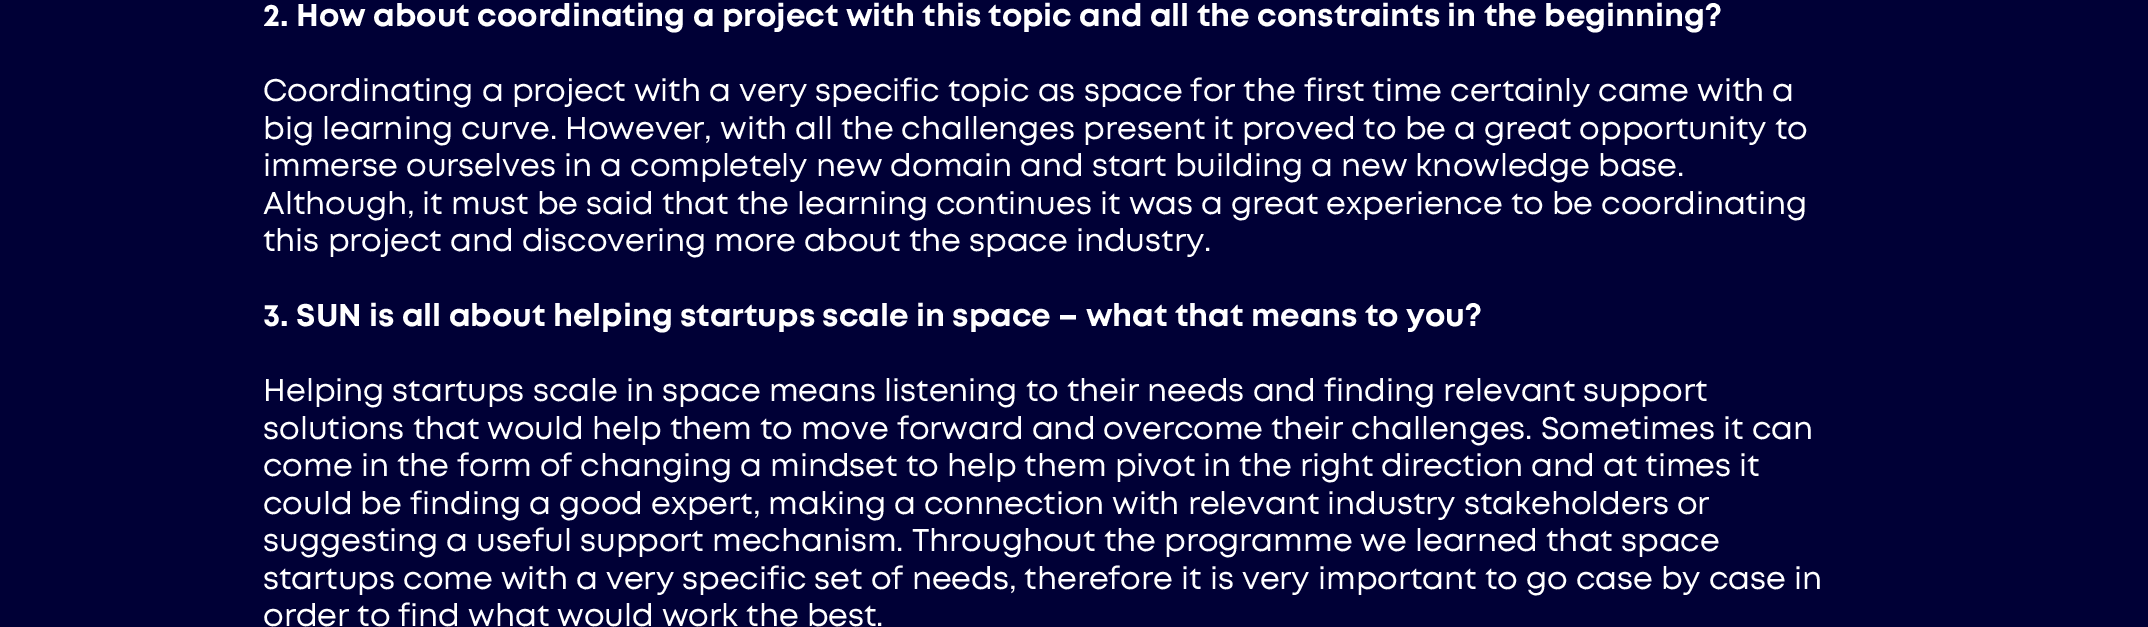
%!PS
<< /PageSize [2148 627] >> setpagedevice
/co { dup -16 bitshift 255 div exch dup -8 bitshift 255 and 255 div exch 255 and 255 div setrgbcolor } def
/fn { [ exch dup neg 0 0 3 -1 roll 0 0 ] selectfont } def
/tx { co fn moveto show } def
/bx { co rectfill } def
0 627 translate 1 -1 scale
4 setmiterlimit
0 0 2148 627 16#000036 bx
(2. How about coordinating a project with this topic and all the constraints in the beginning?) 263 26 /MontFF-Bold 31.25 16#FFFFFF tx
(Coordinating a project with a very specific topic as space for the first time certainly came with a) 263 101 /MontFF-Regular 31.25 16#FFFFFF tx
(big learning curve. However, with all the challenges present it proved to be a great opportunity to) 263 139 /MontFF-Regular 31.25 16#FFFFFF tx
(immerse ourselves in a completely new domain and start building a new knowledge base.) 263 176 /MontFF-Regular 31.25 16#FFFFFF tx
(Although, it must be said that the learning continues it was a great experience to be coordinating) 263 214 /MontFF-Regular 31.25 16#FFFFFF tx
(this project and discovering more about the space industry.) 263 251 /MontFF-Regular 31.25 16#FFFFFF tx
(3. SUN is all about helping startups scale in space – what that means to you?) 263 326 /MontFF-Bold 31.25 16#FFFFFF tx
(Helping startups scale in space means listening to their needs and finding relevant support) 263 401 /MontFF-Regular 31.25 16#FFFFFF tx
(solutions that would help them to move forward and overcome their challenges. Sometimes it can) 263 439 /MontFF-Regular 31.25 16#FFFFFF tx
(come in the form of changing a mindset to help them pivot in the right direction and at times it) 263 476 /MontFF-Regular 31.25 16#FFFFFF tx
(could be finding a good expert, making a connection with relevant industry stakeholders or) 263 514 /MontFF-Regular 31.25 16#FFFFFF tx
(suggesting a useful support mechanism. Throughout the programme we learned that space) 263 551 /MontFF-Regular 31.25 16#FFFFFF tx
(startups come with a very specific set of needs, therefore it is very important to go case by case in) 263 589 /MontFF-Regular 31.25 16#FFFFFF tx
(order to find what would work the best.) 263 626 /MontFF-Regular 31.25 16#FFFFFF tx
showpage
